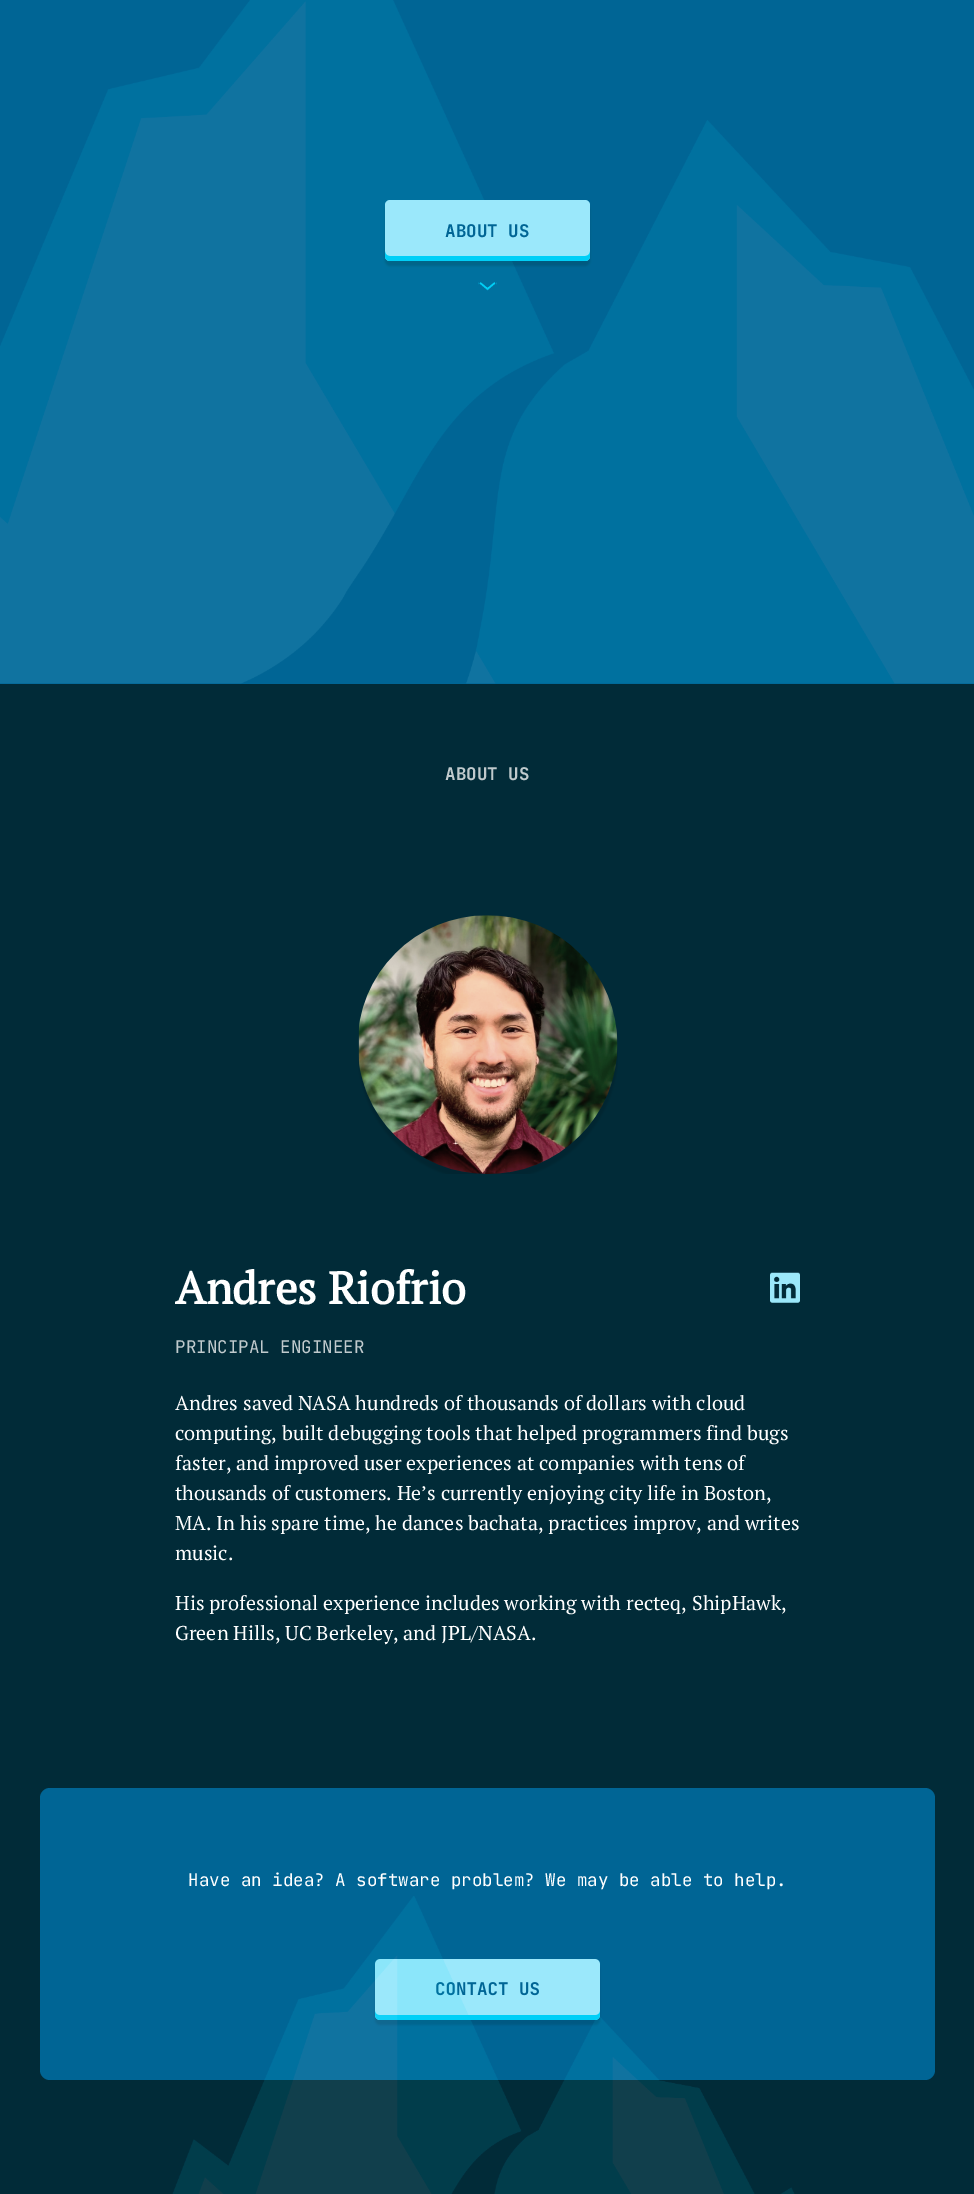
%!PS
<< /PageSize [974 2194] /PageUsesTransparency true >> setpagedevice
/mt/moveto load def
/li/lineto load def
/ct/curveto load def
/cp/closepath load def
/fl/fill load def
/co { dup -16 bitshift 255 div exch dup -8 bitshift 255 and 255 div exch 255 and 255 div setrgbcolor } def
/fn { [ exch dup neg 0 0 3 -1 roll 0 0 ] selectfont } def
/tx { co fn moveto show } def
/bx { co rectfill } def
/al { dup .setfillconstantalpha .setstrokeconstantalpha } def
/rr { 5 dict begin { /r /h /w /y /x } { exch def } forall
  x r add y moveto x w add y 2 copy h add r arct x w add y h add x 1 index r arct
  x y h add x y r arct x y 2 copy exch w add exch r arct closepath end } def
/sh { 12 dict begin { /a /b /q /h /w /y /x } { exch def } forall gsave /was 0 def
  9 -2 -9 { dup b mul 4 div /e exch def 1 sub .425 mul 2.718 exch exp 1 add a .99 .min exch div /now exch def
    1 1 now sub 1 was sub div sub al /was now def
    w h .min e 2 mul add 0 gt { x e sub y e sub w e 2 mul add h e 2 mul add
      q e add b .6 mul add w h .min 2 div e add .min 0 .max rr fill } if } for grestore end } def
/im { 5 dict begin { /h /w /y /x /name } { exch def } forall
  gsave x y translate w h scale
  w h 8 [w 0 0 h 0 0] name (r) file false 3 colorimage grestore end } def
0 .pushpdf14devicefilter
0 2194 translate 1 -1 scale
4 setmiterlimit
0 0 974 2194 16#006595 bx
(media/1.raw) 0 0 974 684 im
16#000000 co
385 205 205 61 5 1 .12 sh
16#9BE8FB co
385 200 205 61 5 rr fl
16#00CFF7 co
385 251 mt 385 256 li 385 259 387 261 390 261 ct 585 261 li 588 261 590 259 590 256 ct 590 251 li 590 254 588 256 585 256 ct 390 256 li 387 256 385 254 385 251 ct cp fl
(media/2.raw) 478 282 19 9 im
0 684 974 1510 16#012B38 bx
(media/3.raw) 358 915 260 259 im
(media/4.raw) 770 1272 30 31 im
16#006595 co
40 1788 895 292 10 rr fl
16#000000 co
375 1964 225 61 5 1 .12 sh
16#9BE8FB co
375 1959 225 61 5 rr fl
16#00CFF7 co
375 2010 mt 375 2015 li 375 2018 377 2020 380 2020 ct 595 2020 li 598 2020 600 2018 600 2015 ct 600 2010 li 600 2013 598 2015 595 2015 ct 380 2015 li 377 2015 375 2013 375 2010 ct cp fl
(ABOUT US) 445 237 /JetBrainsMono-Bold 17.5 16#006595 tx
(ABOUT US) 445 780 /JetBrainsMono-Bold 17.5 16#C0CACD tx
(Andres Riofrio) 175 1304 /PTSerif-Bold 45 16#FFFFFF tx
(PRINCIPAL ENGINEER) 175 1353 /JetBrainsMono-Regular 17.5 16#C0CACD tx
(Andres saved NASA hundreds of thousands of dollars with cloud) 175 1410 /PTSerif-Regular 20 16#FFFFFF tx
(computing, built debugging tools that helped programmers find bugs) 175 1440 /PTSerif-Regular 20 16#FFFFFF tx
(faster, and improved user experiences at companies with tens of) 175 1470 /PTSerif-Regular 20 16#FFFFFF tx
(thousands of customers. He’s currently enjoying city life in Boston,) 175 1500 /PTSerif-Regular 20 16#FFFFFF tx
(MA. In his spare time, he dances bachata, practices improv, and writes) 175 1530 /PTSerif-Regular 20 16#FFFFFF tx
(music.) 175 1560 /PTSerif-Regular 20 16#FFFFFF tx
(His professional experience includes working with recteq, ShipHawk,) 175 1610 /PTSerif-Regular 20 16#FFFFFF tx
(Green Hills, UC Berkeley, and JPL/NASA.) 175 1640 /PTSerif-Regular 20 16#FFFFFF tx
(Have an idea? A software problem? We may be able to help.) 188 1886 /JetBrainsMono-Regular 17.5 16#FFFFFF tx
(CONTACT US) 435 1995 /JetBrainsMono-Bold 17.5 16#006595 tx
(media/5.raw) 172 1896 623 298 im
.poppdf14devicefilter showpage
